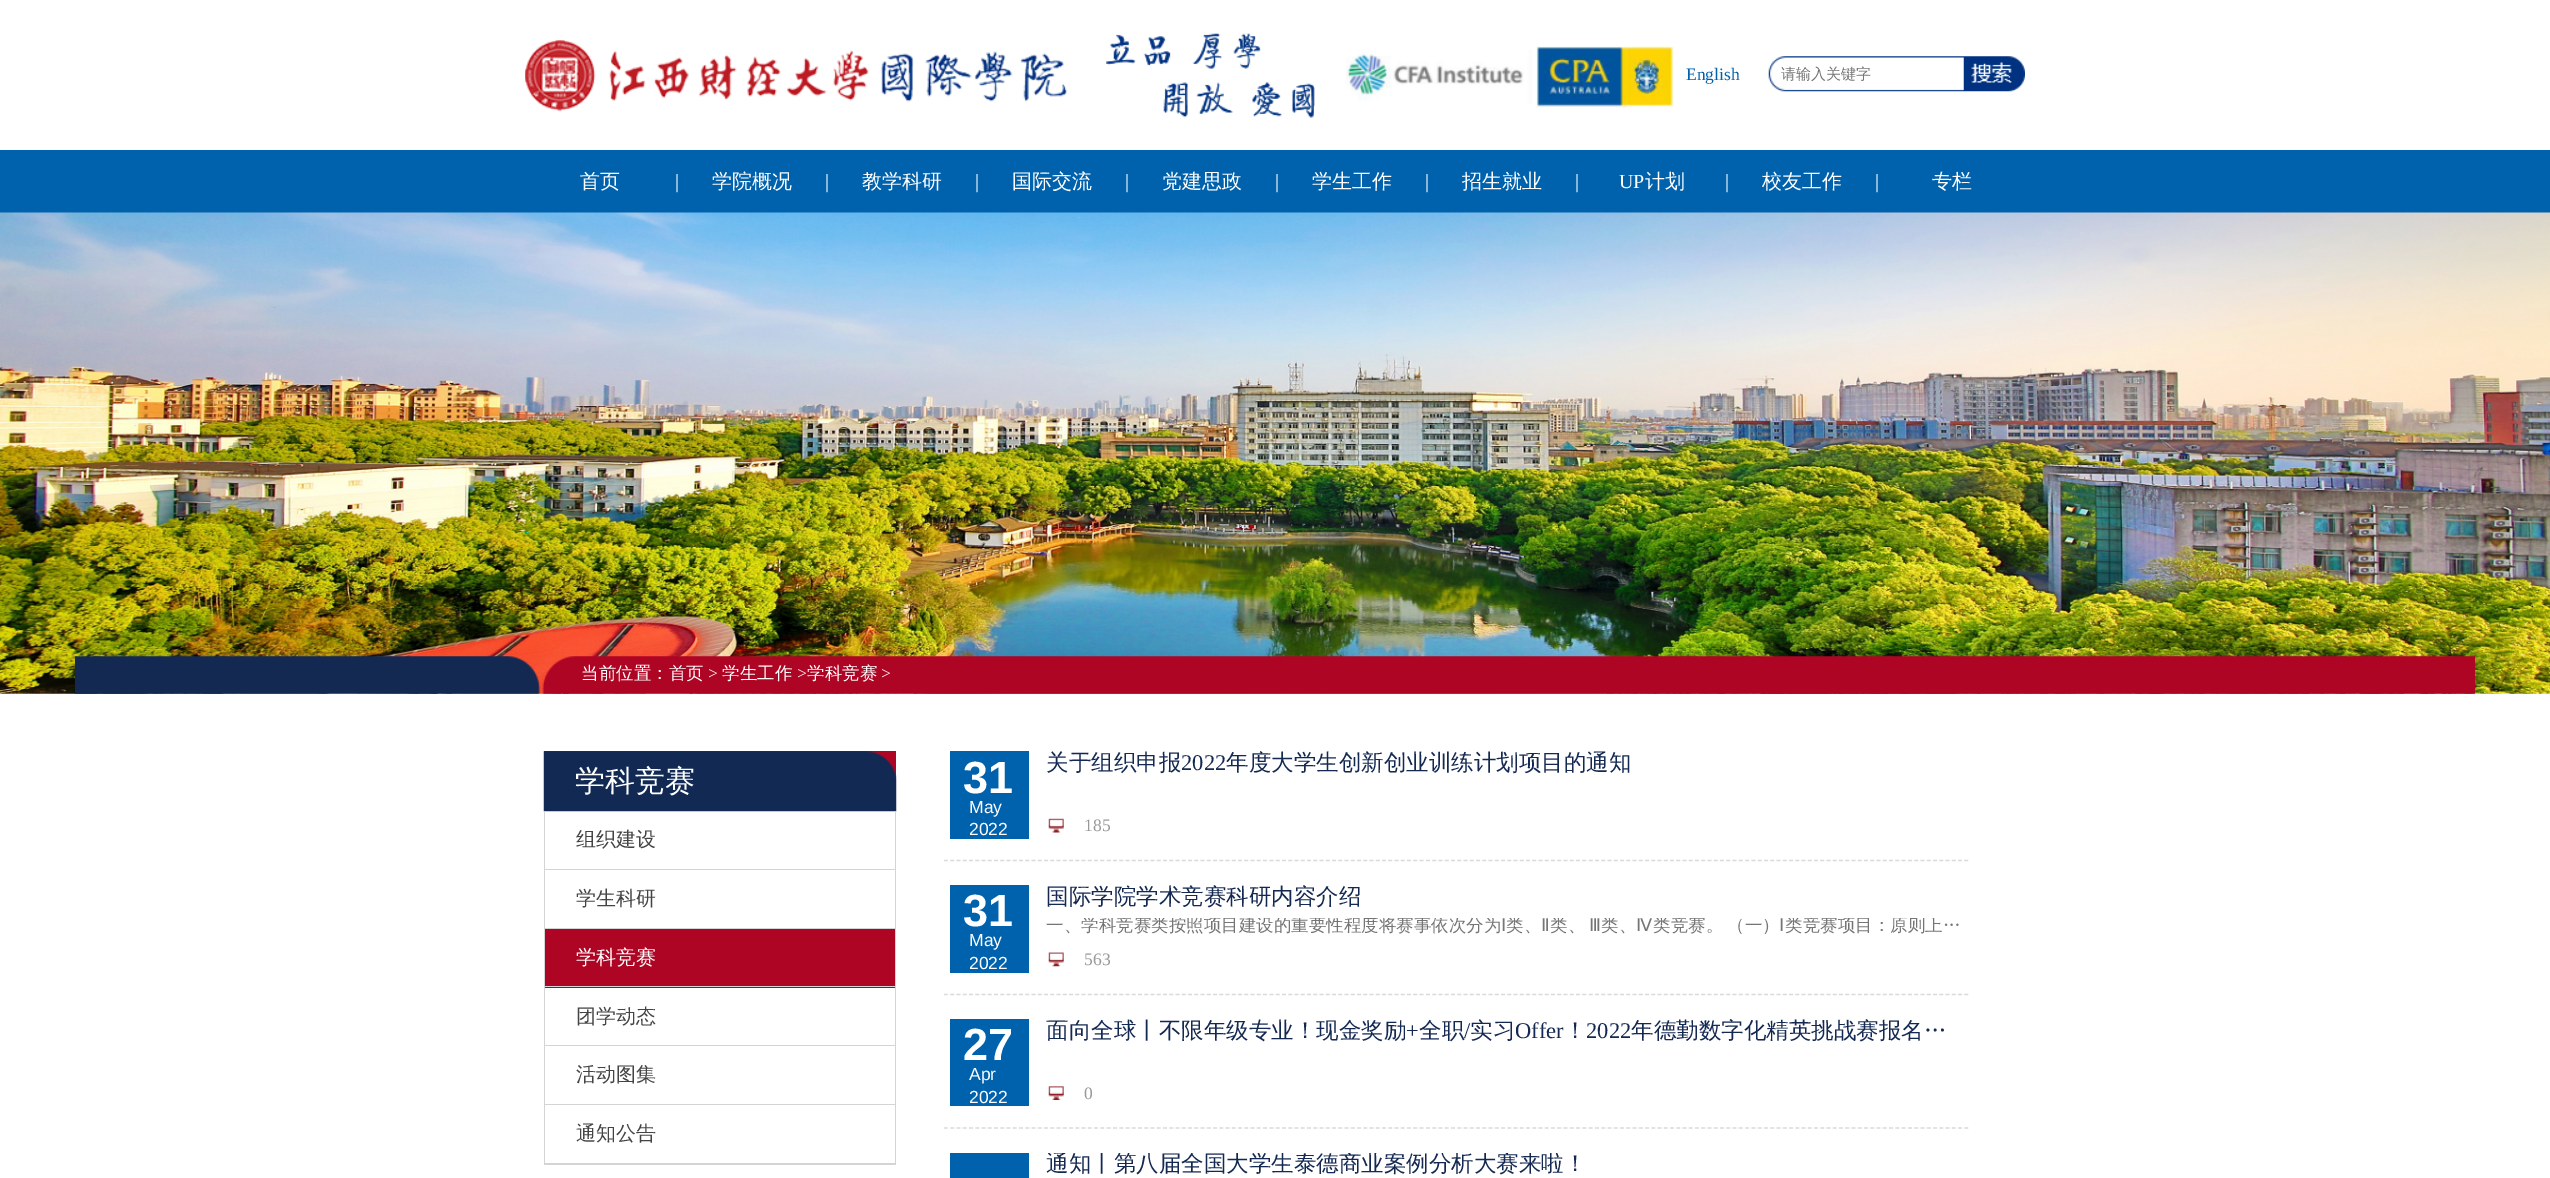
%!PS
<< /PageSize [2550 1178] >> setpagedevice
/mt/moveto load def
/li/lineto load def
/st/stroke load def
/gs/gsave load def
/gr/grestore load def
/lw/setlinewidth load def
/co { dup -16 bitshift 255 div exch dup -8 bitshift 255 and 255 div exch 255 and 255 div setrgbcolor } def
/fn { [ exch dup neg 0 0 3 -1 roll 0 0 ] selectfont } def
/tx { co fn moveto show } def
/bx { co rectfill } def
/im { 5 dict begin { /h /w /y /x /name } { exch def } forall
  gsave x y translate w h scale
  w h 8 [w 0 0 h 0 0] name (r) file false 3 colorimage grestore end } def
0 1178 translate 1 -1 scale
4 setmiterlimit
0 0 2550 1178 16#FFFFFF bx
(media/1.raw) 525 40 542 72 im
(media/2.raw) 1106 33 209 85 im
(media/3.raw) 1346 49 187 56 im
(media/4.raw) 1536 46 138 62 im
(media/5.raw) 1768 56 257 36 im
0 150 2550 63 16#0062AD bx
(media/6.raw) 0 212 2550 482 im
(media/7.raw) 75 656 2400 38 im
544 751 352 31 16#AF0525 bx
(media/8.raw) 543 751 354 61 im
895 811 1 354 16#D4D4D4 bx
544 1164 352 1 16#D4D4D4 bx
544 811 1 354 16#D4D4D4 bx
545 869 350 1 16#D4D4D4 bx
545 928 350 1 16#D4D4D4 bx
545 929 350 59 16#AF0525 bx
545 986 350 1 16#D4D4D4 bx
545 1045 350 1 16#D4D4D4 bx
545 1104 350 1 16#D4D4D4 bx
545 1163 350 1 16#D4D4D4 bx
16#DADADA co
1.2 lw
[3.75 2.51] 0 setdash
944 860.5 mt 1969 860.5 li st
950 751 79 88 16#0062AD bx
(media/9.raw) 1048 818 16 15 im
16#DADADA co
944 994.5 mt 1969 994.5 li st
950 885 79 88 16#0062AD bx
(media/10.raw) 1048 952 16 15 im
16#DADADA co
944 1128 mt 1969 1128 li st
950 1019 79 87 16#0062AD bx
(media/11.raw) 1048 1086 16 14 im
950 1153 79 25 16#0062AD bx
(English) 1686 80 /LiberationSerif-Regular 17.5 16#0062AD tx
(请输入关键字) 1781 79 /WenQuanYiZenHei-Medium 15 16#757575 tx
(首页) 580 188 /WenQuanYiZenHei-Medium 20 16#FFFFFF tx
(|) 675 188 /LiberationSerif-Regular 20 16#FFFFFF tx
(学院概况) 712 188 /WenQuanYiZenHei-Medium 20 16#FFFFFF tx
(|) 825 188 /LiberationSerif-Regular 20 16#FFFFFF tx
(教学科研) 862 188 /WenQuanYiZenHei-Medium 20 16#FFFFFF tx
(|) 975 188 /LiberationSerif-Regular 20 16#FFFFFF tx
(国际交流) 1012 188 /WenQuanYiZenHei-Medium 20 16#FFFFFF tx
(|) 1125 188 /LiberationSerif-Regular 20 16#FFFFFF tx
(党建思政) 1162 188 /WenQuanYiZenHei-Medium 20 16#FFFFFF tx
(|) 1275 188 /LiberationSerif-Regular 20 16#FFFFFF tx
(学生工作) 1312 188 /WenQuanYiZenHei-Medium 20 16#FFFFFF tx
(|) 1425 188 /LiberationSerif-Regular 20 16#FFFFFF tx
(招生就业) 1462 188 /WenQuanYiZenHei-Medium 20 16#FFFFFF tx
(|) 1575 188 /LiberationSerif-Regular 20 16#FFFFFF tx
(UP) 1619 188 /LiberationSerif-Regular 20 16#FFFFFF tx
(计划) 1645 188 /WenQuanYiZenHei-Medium 20 16#FFFFFF tx
(|) 1725 188 /LiberationSerif-Regular 20 16#FFFFFF tx
(校友工作) 1762 188 /WenQuanYiZenHei-Medium 20 16#FFFFFF tx
(|) 1875 188 /LiberationSerif-Regular 20 16#FFFFFF tx
(专栏) 1932 188 /WenQuanYiZenHei-Medium 20 16#FFFFFF tx
(当前位置：首页) 581 679 /WenQuanYiZenHei-Medium 17.5 16#FFFFFF tx
(>) 708 679 /LiberationSerif-Regular 17.5 16#FFFFFF tx
(学生工作) 722 679 /WenQuanYiZenHei-Medium 17.5 16#FFFFFF tx
(>) 797 679 /LiberationSerif-Regular 17.5 16#FFFFFF tx
(学科竞赛) 807 679 /WenQuanYiZenHei-Medium 17.5 16#FFFFFF tx
(>) 881 679 /LiberationSerif-Regular 17.5 16#FFFFFF tx
(学科竞赛) 575 791 /WenQuanYiZenHei-Medium 30 16#FFFFFF tx
(组织建设) 576 846 /WenQuanYiZenHei-Medium 20 16#444444 tx
(学生科研) 576 905 /WenQuanYiZenHei-Medium 20 16#444444 tx
(学科竞赛) 576 964 /WenQuanYiZenHei-Medium 20 16#FFFFFF tx
(团学动态) 576 1023 /WenQuanYiZenHei-Medium 20 16#444444 tx
(活动图集) 576 1081 /WenQuanYiZenHei-Medium 20 16#444444 tx
(通知公告) 576 1140 /WenQuanYiZenHei-Medium 20 16#444444 tx
(31) 963 793 /LiberationSans-Bold 45 16#FFFFFF tx
(May) 969 813 /LiberationSans-Regular 17.5 16#FFFFFF tx
(2022) 969 835 /LiberationSans-Regular 17.5 16#FFFFFF tx
(关于组织申报) 1046 770 /WenQuanYiZenHei-Medium 22.5 16#142952 tx
(2022) 1181 770 /LiberationSerif-Regular 22.5 16#142952 tx
(年度大学生创新创业训练计划项目的通知) 1226 770 /WenQuanYiZenHei-Medium 22.5 16#142952 tx
(185) 1084 831 /LiberationSerif-Regular 17.5 16#999999 tx
(31) 963 926 /LiberationSans-Bold 45 16#FFFFFF tx
(May) 969 946 /LiberationSans-Regular 17.5 16#FFFFFF tx
(2022) 969 969 /LiberationSans-Regular 17.5 16#FFFFFF tx
(国际学院学术竞赛科研内容介绍) 1046 904 /WenQuanYiZenHei-Medium 22.5 16#142952 tx
gs
1046 918 923 17 rectclip
(一、学科竞赛类按照项目建设的重要性程度将赛事依次分为 类、) 1046 931 /WenQuanYiZenHei-Medium 17.5 16#757575 tx
gr
(Ⅰ) 1501 931 /DejaVuSans-Regular 17.5 16#757575 tx
(Ⅱ) 1541 931 /DejaVuSans-Regular 17.5 16#757575 tx
gs
1046 918 923 17 rectclip
(类、) 1550 931 /WenQuanYiZenHei-Medium 17.5 16#757575 tx
gr
(Ⅲ) 1589 931 /DejaVuSans-Regular 17.5 16#757575 tx
gs
1046 918 923 17 rectclip
(类、) 1601 931 /WenQuanYiZenHei-Medium 17.5 16#757575 tx
gr
(Ⅳ) 1636 931 /DejaVuSans-Regular 17.5 16#757575 tx
gs
1046 918 923 17 rectclip
/WenQuanYiZenHei-Medium 17.5 fn
1653 931 mt -1 0 32 (类竞赛。 （一）) widthshow
gr
(Ⅰ) 1779 931 /DejaVuSans-Regular 17.5 16#757575 tx
gs
1046 918 923 17 rectclip
(类竞赛项目：原则上…) 1785 931 /WenQuanYiZenHei-Medium 17.5 16#757575 tx
gr
(563) 1084 965 /LiberationSerif-Regular 17.5 16#999999 tx
(27) 963 1060 /LiberationSans-Bold 45 16#FFFFFF tx
(Apr) 969 1080 /LiberationSans-Regular 17.5 16#FFFFFF tx
(2022) 969 1103 /LiberationSans-Regular 17.5 16#FFFFFF tx
(面向全球丨不限年级专业！现金奖励) 1046 1038 /WenQuanYiZenHei-Medium 22.5 16#142952 tx
(+) 1406 1038 /LiberationSerif-Regular 22.5 16#142952 tx
(全职) 1419 1038 /WenQuanYiZenHei-Medium 22.5 16#142952 tx
(/) 1464 1038 /LiberationSerif-Regular 22.5 16#142952 tx
(实习) 1470 1038 /WenQuanYiZenHei-Medium 22.5 16#142952 tx
(Offer) 1515 1038 /LiberationSerif-Regular 22.5 16#142952 tx
(！) 1564 1038 /WenQuanYiZenHei-Medium 22.5 16#142952 tx
(2022) 1586 1038 /LiberationSerif-Regular 22.5 16#142952 tx
(年德勤数字化精英挑战赛报名…) 1631 1038 /WenQuanYiZenHei-Medium 22.5 16#142952 tx
(0) 1084 1099 /LiberationSerif-Regular 17.5 16#999999 tx
gs
1046 1153 923 23 rectclip
(通知丨第八届全国大学生泰德商业案例分析大赛来啦！) 1046 1171 /WenQuanYiZenHei-Medium 22.5 16#142952 tx
gr
showpage
